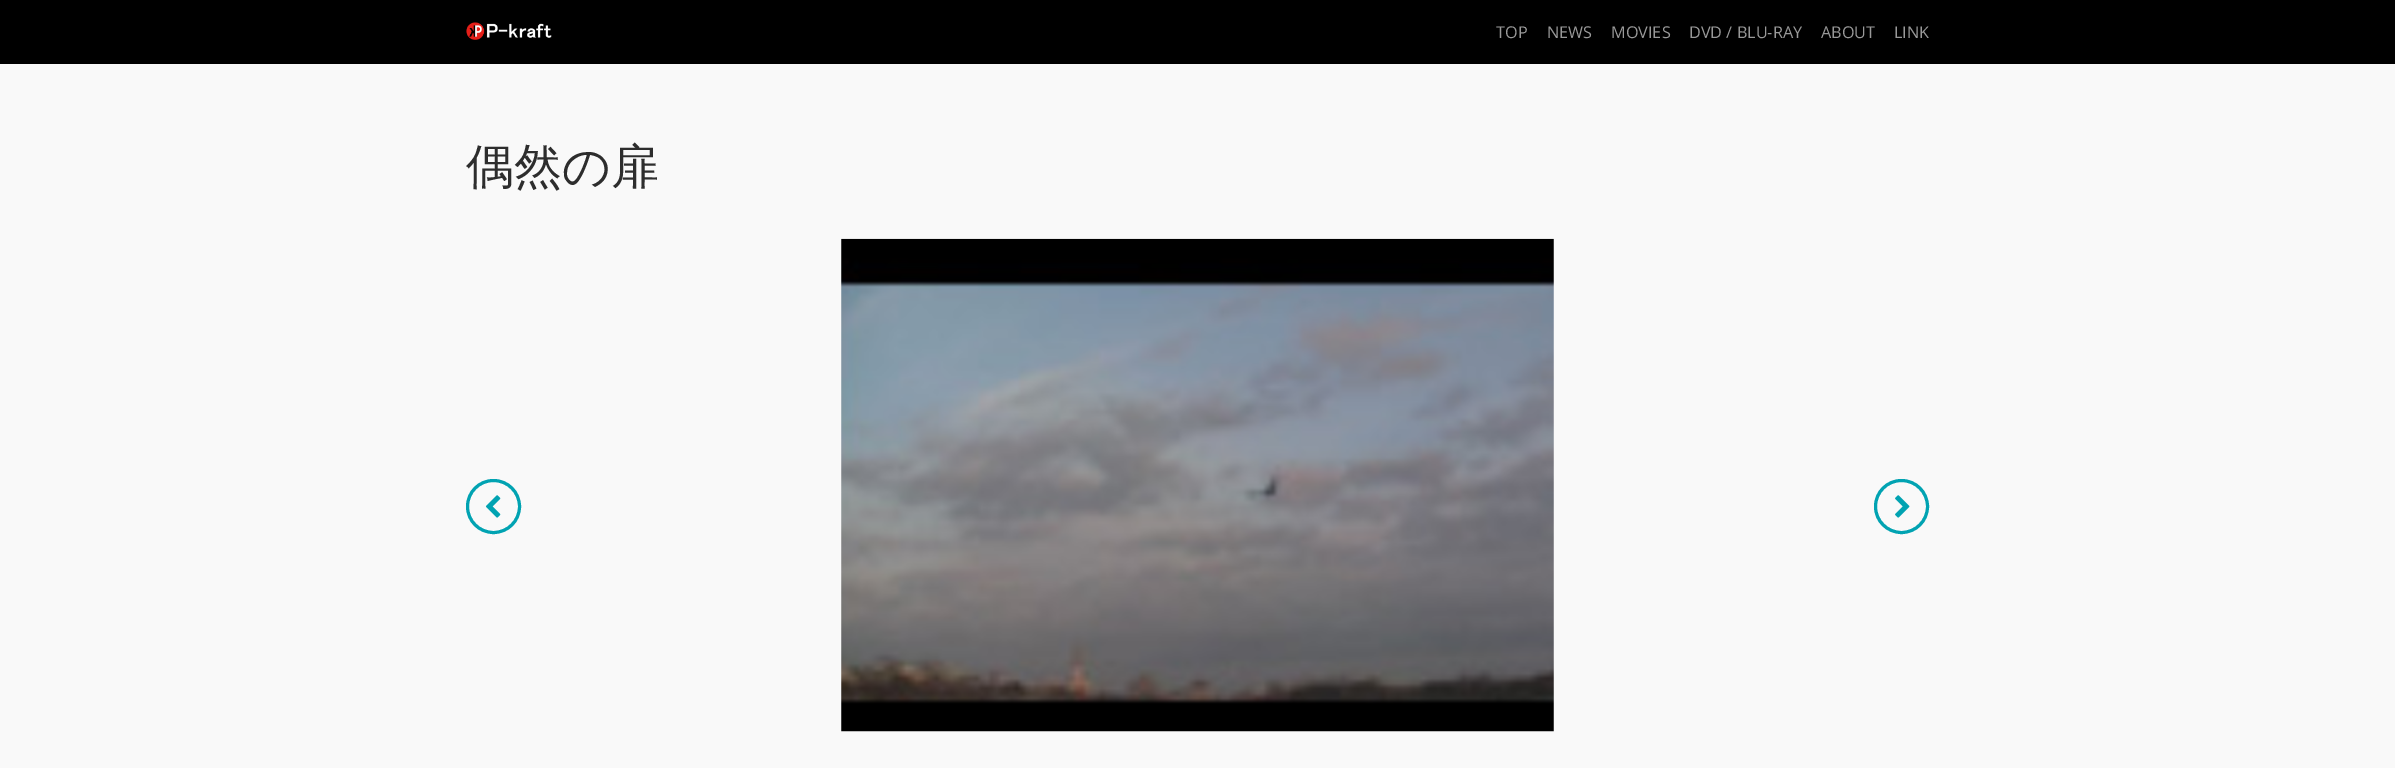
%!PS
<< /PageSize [2395 768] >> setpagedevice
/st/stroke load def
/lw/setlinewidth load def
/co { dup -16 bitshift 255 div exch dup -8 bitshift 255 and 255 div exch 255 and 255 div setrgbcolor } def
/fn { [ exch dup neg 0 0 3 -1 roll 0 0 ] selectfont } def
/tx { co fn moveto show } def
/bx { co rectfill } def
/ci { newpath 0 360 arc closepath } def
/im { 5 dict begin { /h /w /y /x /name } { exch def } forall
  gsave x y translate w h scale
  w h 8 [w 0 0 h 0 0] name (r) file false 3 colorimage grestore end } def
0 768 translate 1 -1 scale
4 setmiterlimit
0 0 2395 768 16#F9F9F9 bx
0 0 2395 64 16#000000 bx
(media/1.raw) 466 22 86 18 im
16#01A3B2 co
3 lw
493.5 506.5 26 ci st
(media/2.raw) 485 495 16 23 im
(media/3.raw) 841 238 713 494 im
1901.5 506.5 26 ci st
(media/4.raw) 1895 495 15 23 im
(TOP) 1496 38 /OpenSans-Regular 16.25 16#999999 tx
(NEWS) 1547 38 /OpenSans-Regular 16.25 16#999999 tx
(MOVIES) 1611 38 /OpenSans-Regular 16.25 16#999999 tx
(DVD / BLU-RAY) 1689 38 /OpenSans-Regular 16.25 16#999999 tx
(ABOUT) 1821 38 /OpenSans-Regular 16.25 16#999999 tx
(LINK) 1894 38 /OpenSans-Regular 16.25 16#999999 tx
(偶然の扉) 466 183 /WenQuanYiZenHei-Medium 48 16#2D2D2D tx
showpage
